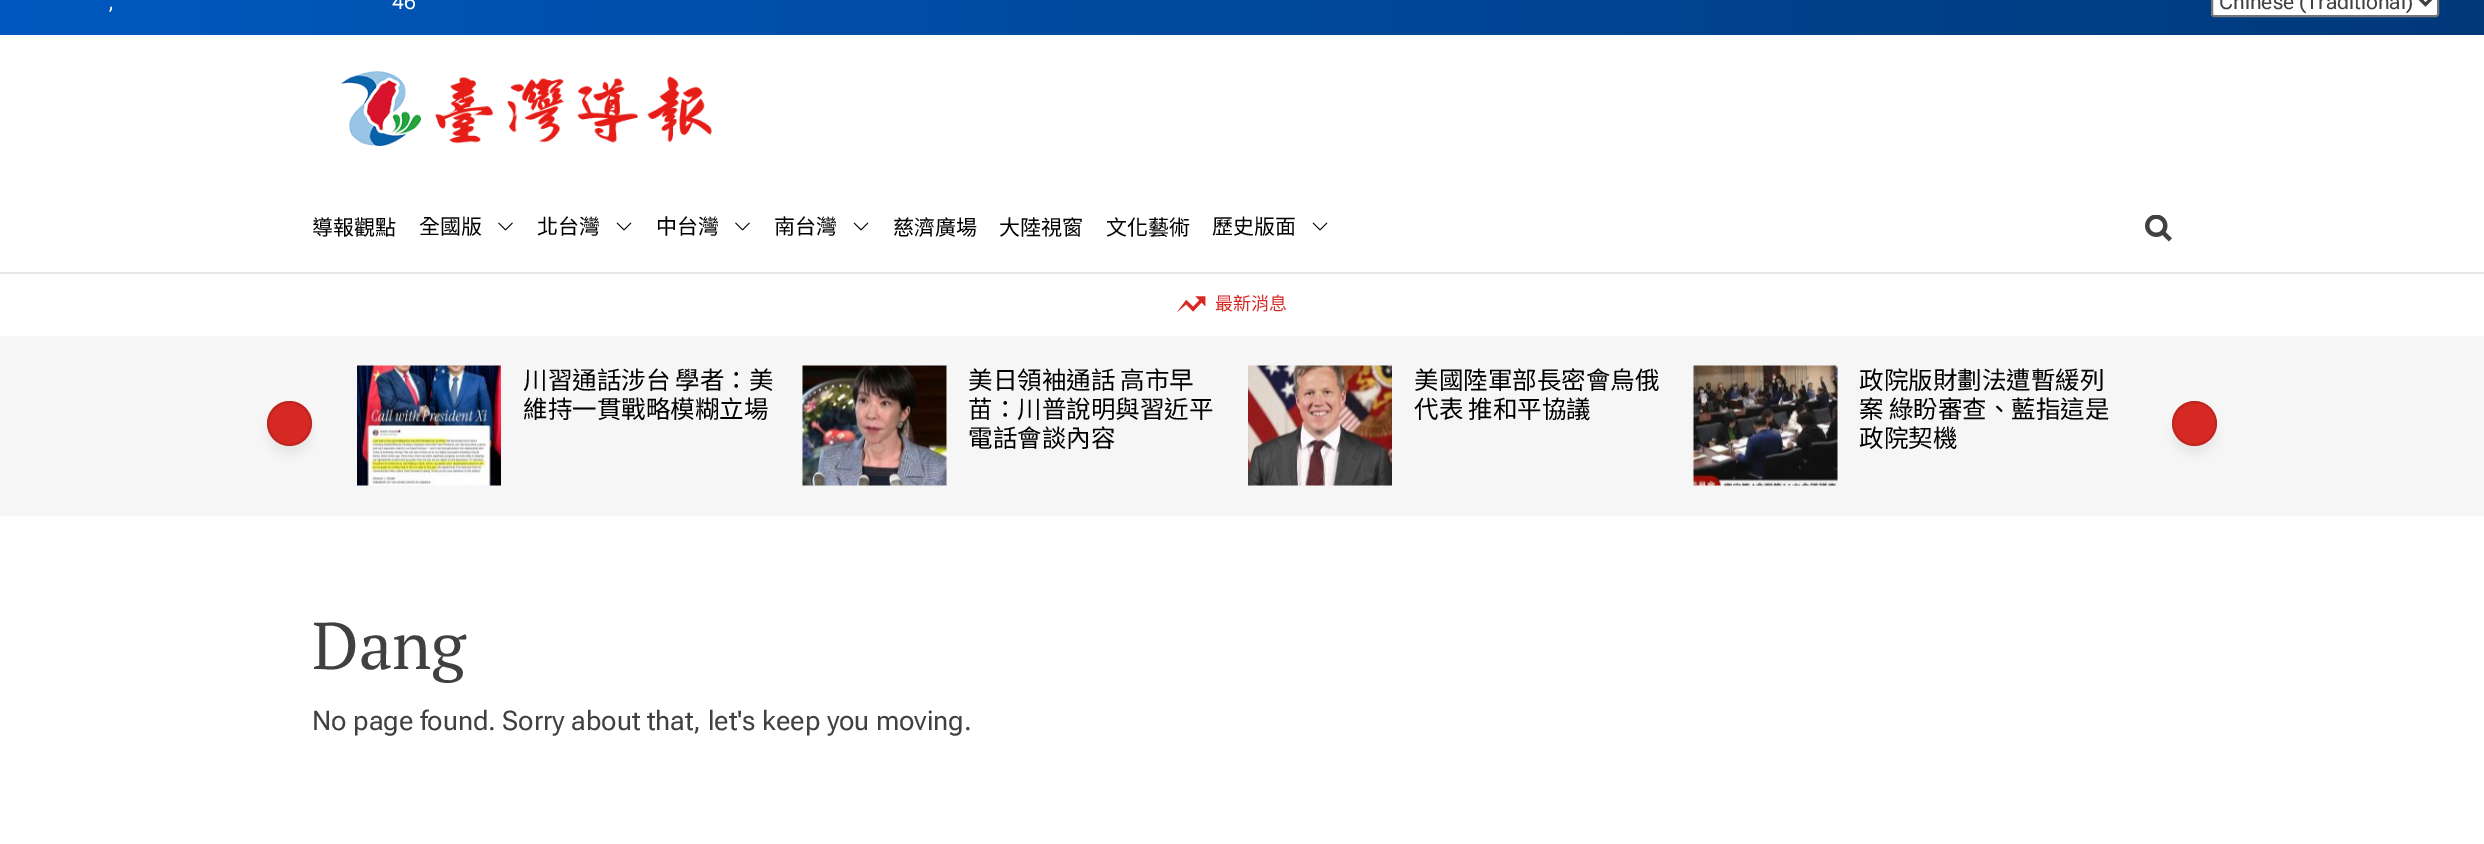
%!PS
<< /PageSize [2484 844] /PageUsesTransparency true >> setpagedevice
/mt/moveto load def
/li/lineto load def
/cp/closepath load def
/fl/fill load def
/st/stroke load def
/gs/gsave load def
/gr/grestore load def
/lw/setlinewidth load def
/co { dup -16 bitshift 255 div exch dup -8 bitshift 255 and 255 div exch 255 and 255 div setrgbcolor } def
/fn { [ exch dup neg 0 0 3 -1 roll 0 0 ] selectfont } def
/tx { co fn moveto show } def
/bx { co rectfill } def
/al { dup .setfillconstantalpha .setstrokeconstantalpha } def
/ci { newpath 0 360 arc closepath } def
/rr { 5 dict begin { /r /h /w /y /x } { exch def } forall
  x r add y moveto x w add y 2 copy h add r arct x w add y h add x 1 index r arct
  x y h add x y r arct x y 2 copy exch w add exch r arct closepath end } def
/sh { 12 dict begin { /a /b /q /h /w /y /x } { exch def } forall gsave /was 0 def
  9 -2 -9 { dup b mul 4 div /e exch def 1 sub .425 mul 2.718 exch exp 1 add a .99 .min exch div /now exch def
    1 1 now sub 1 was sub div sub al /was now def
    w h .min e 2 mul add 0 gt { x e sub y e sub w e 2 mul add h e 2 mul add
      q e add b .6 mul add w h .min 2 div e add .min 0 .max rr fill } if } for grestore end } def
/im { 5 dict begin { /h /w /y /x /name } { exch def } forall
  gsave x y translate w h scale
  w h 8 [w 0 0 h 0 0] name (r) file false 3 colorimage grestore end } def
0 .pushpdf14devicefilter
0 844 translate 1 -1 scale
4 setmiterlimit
0 0 2484 844 16#FFFFFF bx
0 272 2484 2 16#E6E6E6 bx
gs 0 0 mt 2484 0 li 2484 35 li 0 35 li cp clip newpath
<< /ShadingType 2 /ColorSpace /DeviceRGB /Coords [0 1.5 2484 1.5] /Extend [true true] /Function << /FunctionType 2 /Domain [0 1] /C0 [0 .349 .749] /C1 [0 .224 .478] /N 1 >> >> shfill gr
16#FFFFFF co
2212 -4 226 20 2 rr gs fl gr
16#767676 co
2 lw
st
16#404040 co
3 lw
2419.5 -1.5 mt 2425.5 4.5 li 2431.5 -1.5 li st
(media/1.raw) 341 71 371 75 im
(media/2.raw) 498 222 15 9 im
(media/3.raw) 616 222 16 9 im
(media/2.raw) 735 222 15 9 im
(media/3.raw) 853 222 16 9 im
(media/3.raw) 1312 222 16 9 im
(media/4.raw) 2145 215 27 27 im
(media/5.raw) 1176 296 30 17 im
0 336 2484 180 16#F6F6F6 bx
16#000000 co
267 410 45 45 22.5 4.5 .05 sh
16#D72924 co
289.5 423.5 22.5 ci fl
0.1 al
16#000000 co
2 lw
289.5 423.5 21.5 ci st
1 al
(media/6.raw) 357 365 144 121 im
(media/7.raw) 802 365 145 121 im
(media/8.raw) 1248 365 144 121 im
(media/9.raw) 1693 365 145 121 im
2172 410 45 45 22.5 4.5 .05 sh
16#D72924 co
2194.5 423.5 22.5 ci fl
0.1 al
16#000000 co
2194.5 423.5 21.5 ci st
1 al
(,) 108 9 /RobotoFlex-Regular 21 16#FFFFFF tx
(46) 392 9 /RobotoFlex-Regular 21 16#FFFFFF tx
(Chinese \(Traditional\)) 2219 9 /RobotoFlex-Regular 21 16#404040 tx
(導報觀點) 312 235 /NotoSansCJKTC-Regular 21 16#000000 tx
(全國版) 419 234 /NotoSansCJKTC-Regular 21 16#000000 tx
(北台灣) 537 234 /NotoSansCJKTC-Regular 21 16#000000 tx
(中台灣) 656 234 /NotoSansCJKTC-Regular 21 16#000000 tx
(南台灣) 774 234 /NotoSansCJKTC-Regular 21 16#000000 tx
(慈濟廣場) 893 235 /NotoSansCJKTC-Regular 21 16#000000 tx
(大陸視窗) 999 235 /NotoSansCJKTC-Regular 21 16#000000 tx
(文化藝術) 1106 235 /NotoSansCJKTC-Regular 21 16#000000 tx
(歷史版面) 1212 234 /NotoSansCJKTC-Regular 21 16#000000 tx
(最新消息) 1215 310 /NotoSansCJKTC-Regular 18 16#D72924 tx
(川習通話涉台 學者：美) 523 389 /NotoSansCJKTC-Regular 24.5 16#000000 tx
(維持一貫戰略模糊立場) 523 418 /NotoSansCJKTC-Regular 24.5 16#000000 tx
(美日領袖通話 高市早) 968 389 /NotoSansCJKTC-Regular 24.5 16#000000 tx
(苗：川普說明與習近平) 968 418 /NotoSansCJKTC-Regular 24.5 16#000000 tx
(電話會談內容) 968 447 /NotoSansCJKTC-Regular 24.5 16#000000 tx
(美國陸軍部長密會烏俄) 1414 389 /NotoSansCJKTC-Regular 24.5 16#000000 tx
(代表 推和平協議) 1414 418 /NotoSansCJKTC-Regular 24.5 16#000000 tx
(政院版財劃法遭暫緩列) 1859 389 /NotoSansCJKTC-Regular 24.5 16#000000 tx
(案 綠盼審查、藍指這是) 1859 418 /NotoSansCJKTC-Regular 24.5 16#000000 tx
(政院契機) 1859 447 /NotoSansCJKTC-Regular 24.5 16#000000 tx
(Dang) 312 669 /PTSerif-Regular 66 16#404040 tx
(No page found. Sorry about that, let's keep you moving.) 312 730 /RobotoFlex-Regular 27 16#404040 tx
.poppdf14devicefilter showpage
